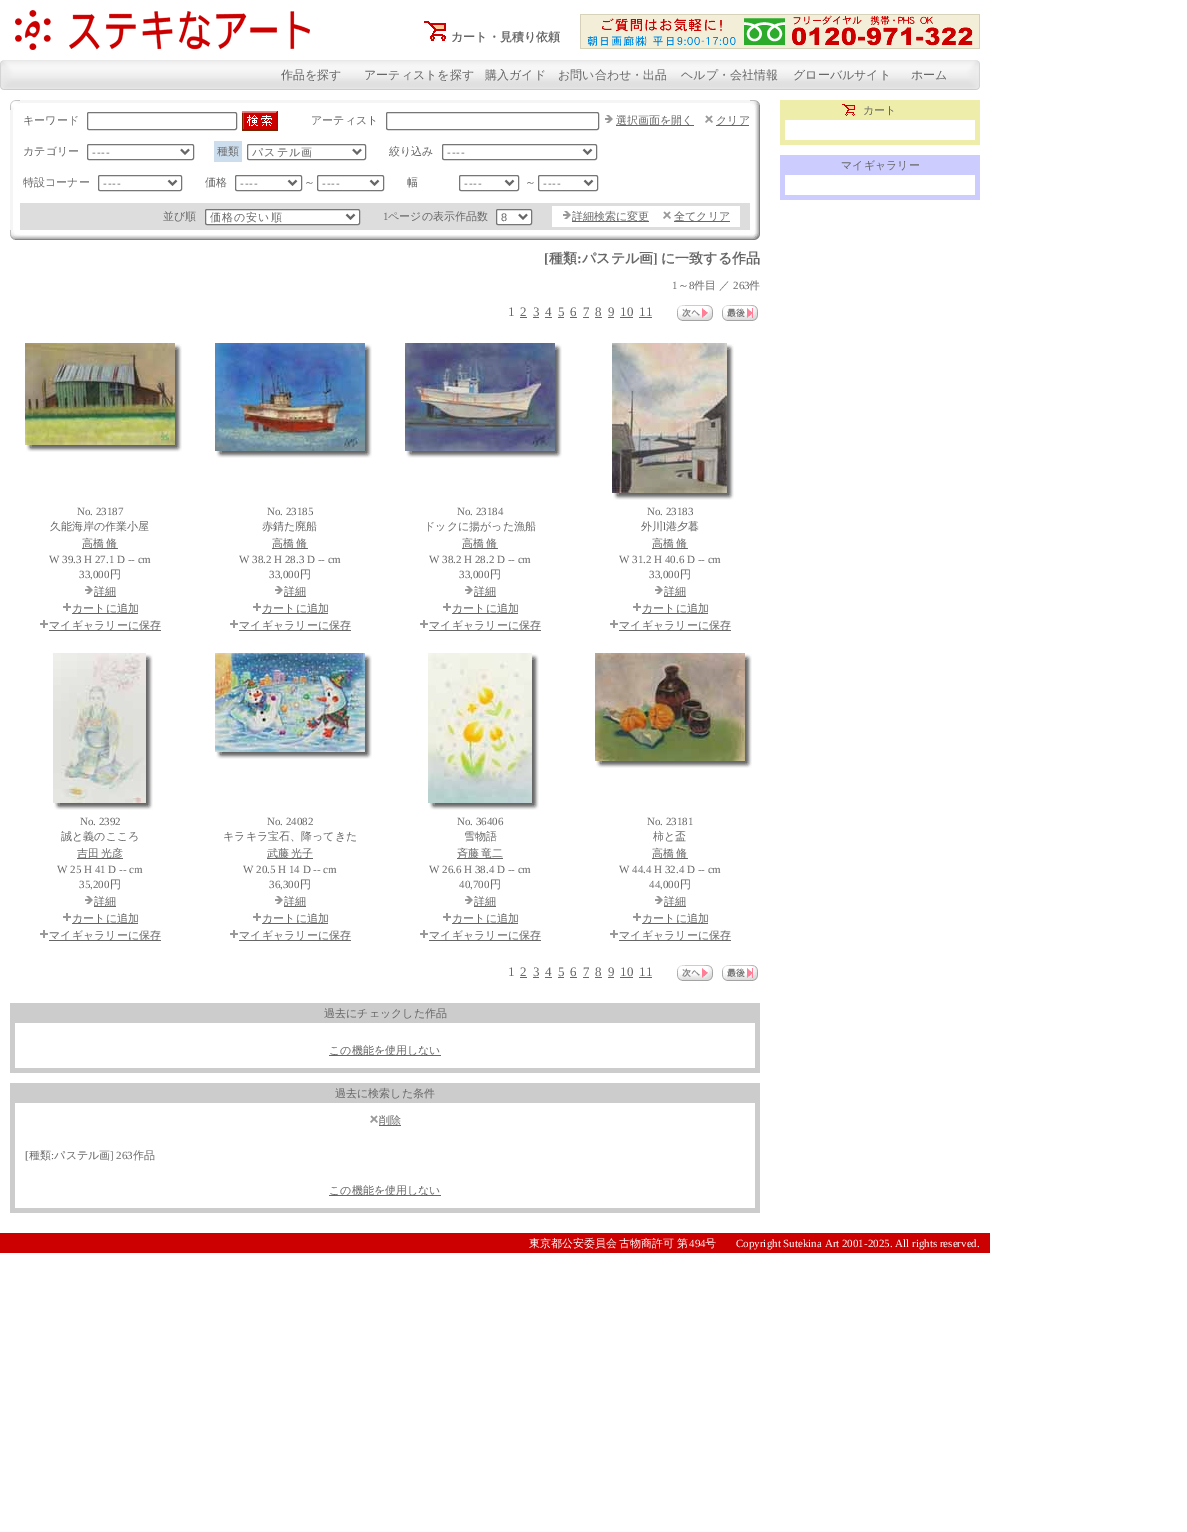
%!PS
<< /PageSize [1187 1532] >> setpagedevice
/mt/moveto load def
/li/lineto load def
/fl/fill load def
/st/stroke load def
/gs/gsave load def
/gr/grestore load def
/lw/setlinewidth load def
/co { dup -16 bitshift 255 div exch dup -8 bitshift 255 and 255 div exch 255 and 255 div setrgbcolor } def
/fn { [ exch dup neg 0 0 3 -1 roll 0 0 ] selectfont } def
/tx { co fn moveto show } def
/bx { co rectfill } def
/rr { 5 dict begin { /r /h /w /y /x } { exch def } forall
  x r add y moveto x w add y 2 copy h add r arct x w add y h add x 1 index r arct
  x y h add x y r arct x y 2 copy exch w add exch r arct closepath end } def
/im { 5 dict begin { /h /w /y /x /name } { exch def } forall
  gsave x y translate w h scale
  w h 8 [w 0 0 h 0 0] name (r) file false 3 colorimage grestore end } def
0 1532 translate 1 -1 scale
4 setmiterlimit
0 0 1187 1532 16#FFFFFF bx
(media/1.raw) 15 10 295 40 im
(media/2.raw) 424 21 22 20 im
(media/3.raw) 580 14 400 35 im
(media/4.raw) 0 60 980 30 im
(media/5.raw) 10 100 10 10 im
20 100 730 3 16#F5F5F5 bx
(media/6.raw) 750 100 10 10 im
10 110 3 120 16#F5F5F5 bx
16#767676 co
87.5 112.5 149 17 1.5 rr st
(media/7.raw) 242 111 36 20 im
386.5 112.5 212 17 1.5 rr st
(media/8.raw) 605 115 8 8 im
616 125 78 1 16#666666 bx
(media/9.raw) 705 115 8 8 im
716 125 33 1 16#666666 bx
16#767676 co
87.5 144.5 106 15 1.5 rr st
16#666666 co
2 lw
181 149.5 mt 185 153.5 li 189 149.5 li st
214 141 28 21 16#CCDDEE bx
16#767676 co
1 lw
247.5 144.5 118 15 1.5 rr st
16#666666 co
2 lw
353 149.5 mt 357 153.5 li 361 149.5 li st
16#767676 co
1 lw
442.5 144.5 154 15 1.5 rr st
16#666666 co
2 lw
583.5 149.5 mt 587.5 153.5 li 591.5 149.5 li st
16#767676 co
1 lw
98.5 175.5 83 15 1.5 rr st
16#666666 co
2 lw
168.5 180.5 mt 172.5 184.5 li 176.5 180.5 li st
16#767676 co
1 lw
235.5 175.5 66 15 1.5 rr st
16#666666 co
2 lw
288.5 180.5 mt 292.5 184.5 li 296.5 180.5 li st
16#767676 co
1 lw
317.5 175.5 66 15 1.5 rr st
16#666666 co
2 lw
370.5 180.5 mt 374.5 184.5 li 378.5 180.5 li st
16#767676 co
1 lw
459.5 175.5 59 15 1.5 rr st
16#666666 co
2 lw
505.5 180.5 mt 509.5 184.5 li 513.5 180.5 li st
16#767676 co
1 lw
538.5 175.5 59 15 1.5 rr st
16#666666 co
2 lw
584.5 180.5 mt 588.5 184.5 li 592.5 180.5 li st
20 203 730 27 16#DDDDDD bx
16#FFFFFF co
205.5 209.5 154 15 1.5 rr gs fl gr
16#767676 co
1 lw
st
16#666666 co
2 lw
346.5 214.5 mt 350.5 218.5 li 354.5 214.5 li st
16#FFFFFF co
496.5 209.5 35 15 1.5 rr gs fl gr
16#767676 co
1 lw
st
16#666666 co
2 lw
519 214.5 mt 523 218.5 li 527 214.5 li st
552 206 188 21 16#FFFFFF bx
(media/8.raw) 563 211 8 8 im
572 221 77 1 16#666666 bx
(media/9.raw) 663 211 8 8 im
674 221 56 1 16#666666 bx
(media/10.raw) 755 110 5 120 im
(media/11.raw) 10 230 10 10 im
(media/12.raw) 20 235 730 5 im
(media/13.raw) 750 230 10 10 im
520 317 7 1 16#666666 bx
533 317 6 1 16#666666 bx
545 317 7 1 16#666666 bx
558 317 6 1 16#666666 bx
570 317 7 1 16#666666 bx
583 317 6 1 16#666666 bx
595 317 7 1 16#666666 bx
608 317 6 1 16#666666 bx
620 317 13 1 16#666666 bx
639 317 13 1 16#666666 bx
(media/14.raw) 677 305 36 16 im
(media/15.raw) 722 305 36 16 im
(media/16.raw) 25 343 150 102 im
(media/17.raw) 175 344 7 6 im
(media/18.raw) 175 350 7 95 im
(media/19.raw) 26 445 6 7 im
(media/20.raw) 32 445 143 7 im
(media/21.raw) 175 445 7 7 im
82 548 36 1 16#666666 bx
(media/8.raw) 85 586 8 8 im
94 596 22 1 16#666666 bx
(media/22.raw) 63 603 8 8 im
72 613 66 1 16#666666 bx
(media/22.raw) 40 620 8 8 im
49 630 112 1 16#666666 bx
(media/23.raw) 215 343 150 108 im
(media/17.raw) 365 344 7 6 im
(media/24.raw) 365 350 7 101 im
(media/19.raw) 216 451 6 7 im
(media/20.raw) 222 451 143 7 im
(media/21.raw) 365 451 7 7 im
272 548 36 1 16#666666 bx
(media/8.raw) 275 586 8 8 im
284 596 22 1 16#666666 bx
(media/22.raw) 253 603 8 8 im
262 613 66 1 16#666666 bx
(media/22.raw) 230 620 8 8 im
239 630 112 1 16#666666 bx
(media/25.raw) 405 343 150 108 im
(media/17.raw) 555 344 7 6 im
(media/24.raw) 555 350 7 101 im
(media/19.raw) 406 451 6 7 im
(media/20.raw) 412 451 143 7 im
(media/21.raw) 555 451 7 7 im
462 548 36 1 16#666666 bx
(media/8.raw) 465 586 8 8 im
474 596 22 1 16#666666 bx
(media/22.raw) 443 603 8 8 im
452 613 66 1 16#666666 bx
(media/22.raw) 420 620 8 8 im
429 630 112 1 16#666666 bx
(media/26.raw) 612 343 115 150 im
(media/17.raw) 727 344 7 6 im
(media/27.raw) 727 350 7 143 im
(media/19.raw) 613 493 6 7 im
(media/28.raw) 619 493 108 7 im
(media/21.raw) 727 493 7 7 im
652 548 36 1 16#666666 bx
(media/8.raw) 655 586 8 8 im
664 596 22 1 16#666666 bx
(media/22.raw) 633 603 8 8 im
642 613 66 1 16#666666 bx
(media/22.raw) 610 620 8 8 im
619 630 112 1 16#666666 bx
(media/29.raw) 53 653 93 150 im
(media/17.raw) 146 654 7 6 im
(media/27.raw) 146 660 7 143 im
(media/19.raw) 54 803 6 7 im
(media/30.raw) 60 803 86 7 im
(media/21.raw) 146 803 7 7 im
77 858 46 1 16#666666 bx
(media/8.raw) 85 896 8 8 im
94 906 22 1 16#666666 bx
(media/22.raw) 63 913 8 8 im
72 923 66 1 16#666666 bx
(media/22.raw) 40 930 8 8 im
49 940 112 1 16#666666 bx
(media/31.raw) 215 653 150 99 im
(media/17.raw) 365 654 7 6 im
(media/32.raw) 365 660 7 92 im
(media/19.raw) 216 752 6 7 im
(media/20.raw) 222 752 143 7 im
(media/21.raw) 365 752 7 7 im
267 858 46 1 16#666666 bx
(media/8.raw) 275 896 8 8 im
284 906 22 1 16#666666 bx
(media/22.raw) 253 913 8 8 im
262 923 66 1 16#666666 bx
(media/22.raw) 230 930 8 8 im
239 940 112 1 16#666666 bx
(media/33.raw) 428 653 104 150 im
(media/17.raw) 532 654 7 6 im
(media/27.raw) 532 660 7 143 im
(media/19.raw) 429 803 6 7 im
(media/34.raw) 435 803 97 7 im
(media/21.raw) 532 803 7 7 im
457 858 46 1 16#666666 bx
(media/8.raw) 465 896 8 8 im
474 906 22 1 16#666666 bx
(media/22.raw) 443 913 8 8 im
452 923 66 1 16#666666 bx
(media/22.raw) 420 930 8 8 im
429 940 112 1 16#666666 bx
(media/35.raw) 595 653 150 108 im
(media/17.raw) 745 654 7 6 im
(media/24.raw) 745 660 7 101 im
(media/19.raw) 596 761 6 7 im
(media/20.raw) 602 761 143 7 im
(media/21.raw) 745 761 7 7 im
652 858 36 1 16#666666 bx
(media/8.raw) 655 896 8 8 im
664 906 22 1 16#666666 bx
(media/22.raw) 633 913 8 8 im
642 923 66 1 16#666666 bx
(media/22.raw) 610 930 8 8 im
619 940 112 1 16#666666 bx
520 977 7 1 16#666666 bx
533 977 6 1 16#666666 bx
545 977 7 1 16#666666 bx
558 977 6 1 16#666666 bx
570 977 7 1 16#666666 bx
583 977 6 1 16#666666 bx
595 977 7 1 16#666666 bx
608 977 6 1 16#666666 bx
620 977 13 1 16#666666 bx
639 977 13 1 16#666666 bx
(media/14.raw) 677 965 36 16 im
(media/15.raw) 722 965 36 16 im
10 1003 750 20 16#CCCCCC bx
10 1023 5 50 16#CCCCCC bx
329 1055 112 1 16#666666 bx
755 1023 5 45 16#CCCCCC bx
15 1068 745 5 16#CCCCCC bx
10 1083 750 20 16#CCCCCC bx
10 1103 5 110 16#CCCCCC bx
(media/9.raw) 370 1115 8 8 im
379 1125 22 1 16#666666 bx
329 1195 112 1 16#666666 bx
755 1103 5 105 16#CCCCCC bx
15 1208 745 5 16#CCCCCC bx
780 100 200 20 16#EEEEAA bx
(media/36.raw) 842 104 13 12 im
780 120 5 25 16#EEEEAA bx
975 120 5 20 16#EEEEAA bx
785 140 195 5 16#EEEEAA bx
780 155 200 20 16#CCCCFF bx
780 175 5 25 16#CCCCFF bx
975 175 5 20 16#CCCCFF bx
785 195 195 5 16#CCCCFF bx
0 1233 990 20 16#CC0000 bx
(カート・見積り依頼) 451 41 /WenQuanYiZenHei-Bold 12 16#666666 tx
(作品を探す) 281 79 /WenQuanYiZenHei-Medium 12 16#666666 tx
(アーティストを探す) 364 79 /WenQuanYiZenHei-Medium 12 16#666666 tx
(購入ガイド) 485 79 /WenQuanYiZenHei-Medium 12 16#666666 tx
(お問い合わせ・出品) 558 79 /WenQuanYiZenHei-Medium 12 16#666666 tx
(ヘルプ・会社情報) 681 79 /WenQuanYiZenHei-Medium 12 16#666666 tx
(グローバルサイト) 793 79 /WenQuanYiZenHei-Medium 12 16#666666 tx
(ホーム) 911 79 /WenQuanYiZenHei-Medium 12 16#666666 tx
(キーワード) 23 124 /WenQuanYiZenHei-Medium 11 16#666666 tx
(アーティスト) 311 124 /WenQuanYiZenHei-Medium 11 16#666666 tx
(選択画面を開く) 616 124 /WenQuanYiZenHei-Medium 11 16#666666 tx
(クリア) 716 124 /WenQuanYiZenHei-Medium 11 16#666666 tx
(カテゴリー) 23 155 /WenQuanYiZenHei-Medium 11 16#666666 tx
/LiberationSans-Regular 11 fn
92 156 mt 1 0 (----) ashow
(種類) 217 155 /WenQuanYiZenHei-Medium 11 16#666666 tx
252 156 mt 1 0 (パステル画) ashow
(絞り込み) 389 155 /WenQuanYiZenHei-Medium 11 16#666666 tx
/LiberationSans-Regular 11 fn
447 156 mt 1 0 (----) ashow
(特設コーナー) 23 186 /WenQuanYiZenHei-Medium 11 16#666666 tx
/LiberationSans-Regular 11 fn
103 187 mt 1 0 (----) ashow
(価格) 205 186 /WenQuanYiZenHei-Medium 11 16#666666 tx
/LiberationSans-Regular 11 fn
240 187 mt 1 0 (----) ashow
(～) 304 186 /WenQuanYiZenHei-Medium 11 16#666666 tx
/LiberationSans-Regular 11 fn
322 187 mt 1 0 (----) ashow
(幅) 407 186 /WenQuanYiZenHei-Medium 11 16#666666 tx
/LiberationSans-Regular 11 fn
464 187 mt 1 0 (----) ashow
(～) 525 186 /WenQuanYiZenHei-Medium 11 16#666666 tx
/LiberationSans-Regular 11 fn
543 187 mt 1 0 (----) ashow
(並び順) 163 220 /WenQuanYiZenHei-Medium 11 16#666666 tx
210 221 mt 1 0 (価格の安い順) ashow
(1) 383 220 /LiberationSerif-Regular 11 16#666666 tx
(ページの表示作品数) 388 220 /WenQuanYiZenHei-Medium 11 16#666666 tx
/LiberationSans-Regular 11 fn
501 221 mt 1 0 (8) ashow
(詳細検索に変更) 572 220 /WenQuanYiZenHei-Medium 11 16#666666 tx
(全てクリア) 674 220 /WenQuanYiZenHei-Medium 11 16#666666 tx
([) 544 263 /LiberationSerif-Bold 14 16#666666 tx
(種類) 549 263 /WenQuanYiZenHei-Bold 14 16#666666 tx
(:) 577 263 /LiberationSerif-Bold 14 16#666666 tx
(パステル画) 582 263 /WenQuanYiZenHei-Bold 14 16#666666 tx
(]) 653 263 /LiberationSerif-Bold 14 16#666666 tx
(に一致する作品) 661 263 /WenQuanYiZenHei-Bold 14 16#666666 tx
(1) 672 289 /LiberationSerif-Regular 11 16#666666 tx
(～) 678 289 /WenQuanYiZenHei-Medium 11 16#666666 tx
(8) 689 289 /LiberationSerif-Regular 11 16#666666 tx
(件目 ／) 694 289 /WenQuanYiZenHei-Medium 11 16#666666 tx
(263) 733 289 /LiberationSerif-Regular 11 16#666666 tx
(件) 749 289 /WenQuanYiZenHei-Medium 11 16#666666 tx
(1) 508 316 /LiberationSerif-Regular 13 16#666666 tx
(2) 520 316 /LiberationSerif-Regular 13 16#666666 tx
(3) 533 316 /LiberationSerif-Regular 13 16#666666 tx
(4) 545 316 /LiberationSerif-Regular 13 16#666666 tx
(5) 558 316 /LiberationSerif-Regular 13 16#666666 tx
(6) 570 316 /LiberationSerif-Regular 13 16#666666 tx
(7) 583 316 /LiberationSerif-Regular 13 16#666666 tx
(8) 595 316 /LiberationSerif-Regular 13 16#666666 tx
(9) 608 316 /LiberationSerif-Regular 13 16#666666 tx
(10) 620 316 /LiberationSerif-Regular 13 16#666666 tx
(11) 639 316 /LiberationSerif-Regular 13 16#666666 tx
(No. 23187) 77 515 /LiberationSerif-Regular 11 16#666666 tx
(久能海岸の作業小屋) 50 530 /WenQuanYiZenHei-Medium 11 16#666666 tx
82 547 mt -1 0 32 (高橋 脩) widthshow
(W 39.3 H 27.1 D -- cm) 49 563 /LiberationSerif-Regular 11 16#666666 tx
(33,000) 79 578 /LiberationSerif-Regular 11 16#666666 tx
(円) 110 578 /WenQuanYiZenHei-Medium 11 16#666666 tx
(詳細) 94 595 /WenQuanYiZenHei-Medium 11 16#666666 tx
(カートに追加) 72 612 /WenQuanYiZenHei-Medium 11 16#666666 tx
(マイギャラリーに保存) 49 629 /WenQuanYiZenHei-Medium 11 16#666666 tx
(No. 23185) 267 515 /LiberationSerif-Regular 11 16#666666 tx
(赤錆た廃船) 262 530 /WenQuanYiZenHei-Medium 11 16#666666 tx
272 547 mt -1 0 32 (高橋 脩) widthshow
(W 38.2 H 28.3 D -- cm) 239 563 /LiberationSerif-Regular 11 16#666666 tx
(33,000) 269 578 /LiberationSerif-Regular 11 16#666666 tx
(円) 300 578 /WenQuanYiZenHei-Medium 11 16#666666 tx
(詳細) 284 595 /WenQuanYiZenHei-Medium 11 16#666666 tx
(カートに追加) 262 612 /WenQuanYiZenHei-Medium 11 16#666666 tx
(マイギャラリーに保存) 239 629 /WenQuanYiZenHei-Medium 11 16#666666 tx
(No. 23184) 457 515 /LiberationSerif-Regular 11 16#666666 tx
(ドックに揚がった漁船) 424 530 /WenQuanYiZenHei-Medium 11 16#666666 tx
462 547 mt -1 0 32 (高橋 脩) widthshow
(W 38.2 H 28.2 D -- cm) 429 563 /LiberationSerif-Regular 11 16#666666 tx
(33,000) 459 578 /LiberationSerif-Regular 11 16#666666 tx
(円) 490 578 /WenQuanYiZenHei-Medium 11 16#666666 tx
(詳細) 474 595 /WenQuanYiZenHei-Medium 11 16#666666 tx
(カートに追加) 452 612 /WenQuanYiZenHei-Medium 11 16#666666 tx
(マイギャラリーに保存) 429 629 /WenQuanYiZenHei-Medium 11 16#666666 tx
(No. 23183) 647 515 /LiberationSerif-Regular 11 16#666666 tx
(外川 港夕暮) 641 530 /WenQuanYiZenHei-Medium 11 16#666666 tx
(l) 663 530 /LiberationSerif-Regular 11 16#666666 tx
/WenQuanYiZenHei-Medium 11 fn
652 547 mt -1 0 32 (高橋 脩) widthshow
(W 31.2 H 40.6 D -- cm) 619 563 /LiberationSerif-Regular 11 16#666666 tx
(33,000) 649 578 /LiberationSerif-Regular 11 16#666666 tx
(円) 680 578 /WenQuanYiZenHei-Medium 11 16#666666 tx
(詳細) 664 595 /WenQuanYiZenHei-Medium 11 16#666666 tx
(カートに追加) 642 612 /WenQuanYiZenHei-Medium 11 16#666666 tx
(マイギャラリーに保存) 619 629 /WenQuanYiZenHei-Medium 11 16#666666 tx
(No. 2392) 80 825 /LiberationSerif-Regular 11 16#666666 tx
(誠と義のこころ) 61 840 /WenQuanYiZenHei-Medium 11 16#666666 tx
77 857 mt -1 0 32 (吉田 光彦) widthshow
(W 25 H 41 D -- cm) 57 873 /LiberationSerif-Regular 11 16#666666 tx
(35,200) 79 888 /LiberationSerif-Regular 11 16#666666 tx
(円) 110 888 /WenQuanYiZenHei-Medium 11 16#666666 tx
(詳細) 94 905 /WenQuanYiZenHei-Medium 11 16#666666 tx
(カートに追加) 72 922 /WenQuanYiZenHei-Medium 11 16#666666 tx
(マイギャラリーに保存) 49 939 /WenQuanYiZenHei-Medium 11 16#666666 tx
(No. 24082) 267 825 /LiberationSerif-Regular 11 16#666666 tx
(キラキラ宝石、降ってきた) 223 840 /WenQuanYiZenHei-Medium 11 16#666666 tx
267 857 mt -1 0 32 (武藤 光子) widthshow
(W 20.5 H 14 D -- cm) 243 873 /LiberationSerif-Regular 11 16#666666 tx
(36,300) 269 888 /LiberationSerif-Regular 11 16#666666 tx
(円) 300 888 /WenQuanYiZenHei-Medium 11 16#666666 tx
(詳細) 284 905 /WenQuanYiZenHei-Medium 11 16#666666 tx
(カートに追加) 262 922 /WenQuanYiZenHei-Medium 11 16#666666 tx
(マイギャラリーに保存) 239 939 /WenQuanYiZenHei-Medium 11 16#666666 tx
(No. 36406) 457 825 /LiberationSerif-Regular 11 16#666666 tx
(雪物語) 464 840 /WenQuanYiZenHei-Medium 11 16#666666 tx
457 857 mt -1 0 32 (斉藤 竜二) widthshow
(W 26.6 H 38.4 D -- cm) 429 873 /LiberationSerif-Regular 11 16#666666 tx
(40,700) 459 888 /LiberationSerif-Regular 11 16#666666 tx
(円) 490 888 /WenQuanYiZenHei-Medium 11 16#666666 tx
(詳細) 474 905 /WenQuanYiZenHei-Medium 11 16#666666 tx
(カートに追加) 452 922 /WenQuanYiZenHei-Medium 11 16#666666 tx
(マイギャラリーに保存) 429 939 /WenQuanYiZenHei-Medium 11 16#666666 tx
(No. 23181) 647 825 /LiberationSerif-Regular 11 16#666666 tx
(柿と盃) 653 840 /WenQuanYiZenHei-Medium 11 16#666666 tx
652 857 mt -1 0 32 (高橋 脩) widthshow
(W 44.4 H 32.4 D -- cm) 619 873 /LiberationSerif-Regular 11 16#666666 tx
(44,000) 649 888 /LiberationSerif-Regular 11 16#666666 tx
(円) 680 888 /WenQuanYiZenHei-Medium 11 16#666666 tx
(詳細) 664 905 /WenQuanYiZenHei-Medium 11 16#666666 tx
(カートに追加) 642 922 /WenQuanYiZenHei-Medium 11 16#666666 tx
(マイギャラリーに保存) 619 939 /WenQuanYiZenHei-Medium 11 16#666666 tx
(1) 508 976 /LiberationSerif-Regular 13 16#666666 tx
(2) 520 976 /LiberationSerif-Regular 13 16#666666 tx
(3) 533 976 /LiberationSerif-Regular 13 16#666666 tx
(4) 545 976 /LiberationSerif-Regular 13 16#666666 tx
(5) 558 976 /LiberationSerif-Regular 13 16#666666 tx
(6) 570 976 /LiberationSerif-Regular 13 16#666666 tx
(7) 583 976 /LiberationSerif-Regular 13 16#666666 tx
(8) 595 976 /LiberationSerif-Regular 13 16#666666 tx
(9) 608 976 /LiberationSerif-Regular 13 16#666666 tx
(10) 620 976 /LiberationSerif-Regular 13 16#666666 tx
(11) 639 976 /LiberationSerif-Regular 13 16#666666 tx
(過去にチェックした作品) 324 1017 /WenQuanYiZenHei-Medium 11 16#666666 tx
(この機能を使用しない) 329 1054 /WenQuanYiZenHei-Medium 11 16#666666 tx
(過去に検索した条件) 335 1097 /WenQuanYiZenHei-Medium 11 16#666666 tx
(削除) 379 1124 /WenQuanYiZenHei-Medium 11 16#666666 tx
([) 25 1159 /LiberationSerif-Regular 11 16#666666 tx
(種類 パステル画) 29 1159 /WenQuanYiZenHei-Medium 11 16#666666 tx
(] 263) 110 1159 /LiberationSerif-Regular 11 16#666666 tx
(作品) 133 1159 /WenQuanYiZenHei-Medium 11 16#666666 tx
(:) 51 1159 /LiberationSerif-Regular 11 16#666666 tx
(この機能を使用しない) 329 1194 /WenQuanYiZenHei-Medium 11 16#666666 tx
(カート) 863 114 /WenQuanYiZenHei-Medium 11 16#666666 tx
(マイギャラリー) 841 169 /WenQuanYiZenHei-Medium 11 16#666666 tx
16#FFFFFF co
529 1247 mt -1 0 32 (東京都公安委員会 古物商許可 第) widthshow
(494) 689 1247 /LiberationSerif-Regular 11 16#FFFFFF tx
(号) 705 1247 /WenQuanYiZenHei-Medium 11 16#FFFFFF tx
(Copyright Sutekina Art 2001-2025. All rights reserved.) 736 1247 /LiberationSerif-Regular 11 16#FFFFFF tx
showpage
